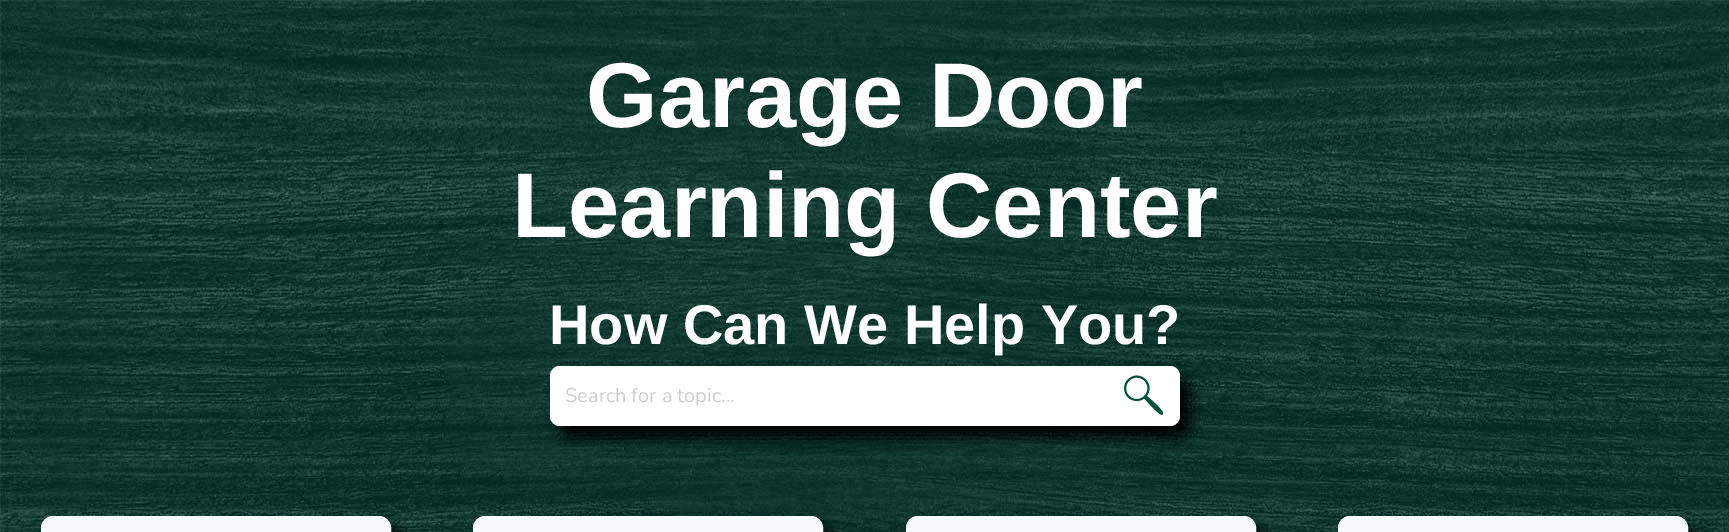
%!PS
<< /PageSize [1729 532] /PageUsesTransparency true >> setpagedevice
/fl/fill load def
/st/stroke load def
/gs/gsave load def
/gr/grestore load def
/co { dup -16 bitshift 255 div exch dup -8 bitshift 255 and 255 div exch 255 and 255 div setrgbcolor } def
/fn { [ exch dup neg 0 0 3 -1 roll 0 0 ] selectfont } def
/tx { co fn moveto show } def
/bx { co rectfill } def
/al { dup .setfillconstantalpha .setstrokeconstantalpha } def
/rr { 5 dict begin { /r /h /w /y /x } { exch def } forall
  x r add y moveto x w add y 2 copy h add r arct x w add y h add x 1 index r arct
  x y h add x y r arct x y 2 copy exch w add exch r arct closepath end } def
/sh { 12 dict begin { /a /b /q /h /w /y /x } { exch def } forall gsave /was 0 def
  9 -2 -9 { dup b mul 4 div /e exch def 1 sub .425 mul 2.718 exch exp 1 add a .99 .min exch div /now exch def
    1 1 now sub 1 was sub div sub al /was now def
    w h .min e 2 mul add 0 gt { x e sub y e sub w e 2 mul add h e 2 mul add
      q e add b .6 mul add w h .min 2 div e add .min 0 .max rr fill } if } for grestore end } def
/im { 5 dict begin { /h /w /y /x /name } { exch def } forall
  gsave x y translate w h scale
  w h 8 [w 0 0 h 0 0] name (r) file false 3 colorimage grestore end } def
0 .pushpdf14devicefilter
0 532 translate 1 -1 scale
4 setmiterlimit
0 0 1729 532 16#FFFFFF bx
(media/1.raw) 0 0 1729 532 im
16#000000 co
560 378 630 60 10 7.5 1 sh
16#FFFFFF co
550 366 630 60 10 rr fl
(media/2.raw) 1124 375 39 40 im
16#000000 co
51 528 350 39 12 7.5 1 sh
16#F8F9FA co
41.5 516.5 349 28 11.5 rr gs fl gr
st
16#000000 co
483 528 350 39 12 7.5 1 sh
16#F8F9FA co
473.5 516.5 349 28 11.5 rr gs fl gr
st
16#000000 co
916 528 350 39 12 7.5 1 sh
16#F8F9FA co
906.5 516.5 349 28 11.5 rr gs fl gr
st
16#000000 co
1348 528 350 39 12 7.5 1 sh
16#F8F9FA co
1338.5 516.5 349 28 11.5 rr gs fl gr
st
(Garage Door) 586 127 /LiberationSans-Bold 92 16#FFFFFF tx
(Learning Center) 512 237 /LiberationSans-Bold 92 16#FFFFFF tx
(How Can We Help You?) 549 344 /LiberationSans-Bold 56 16#FFFFFF tx
(Search for a topic...) 565 402 /Nunito-ExtraLight 20 16#CECECE tx
.poppdf14devicefilter showpage
